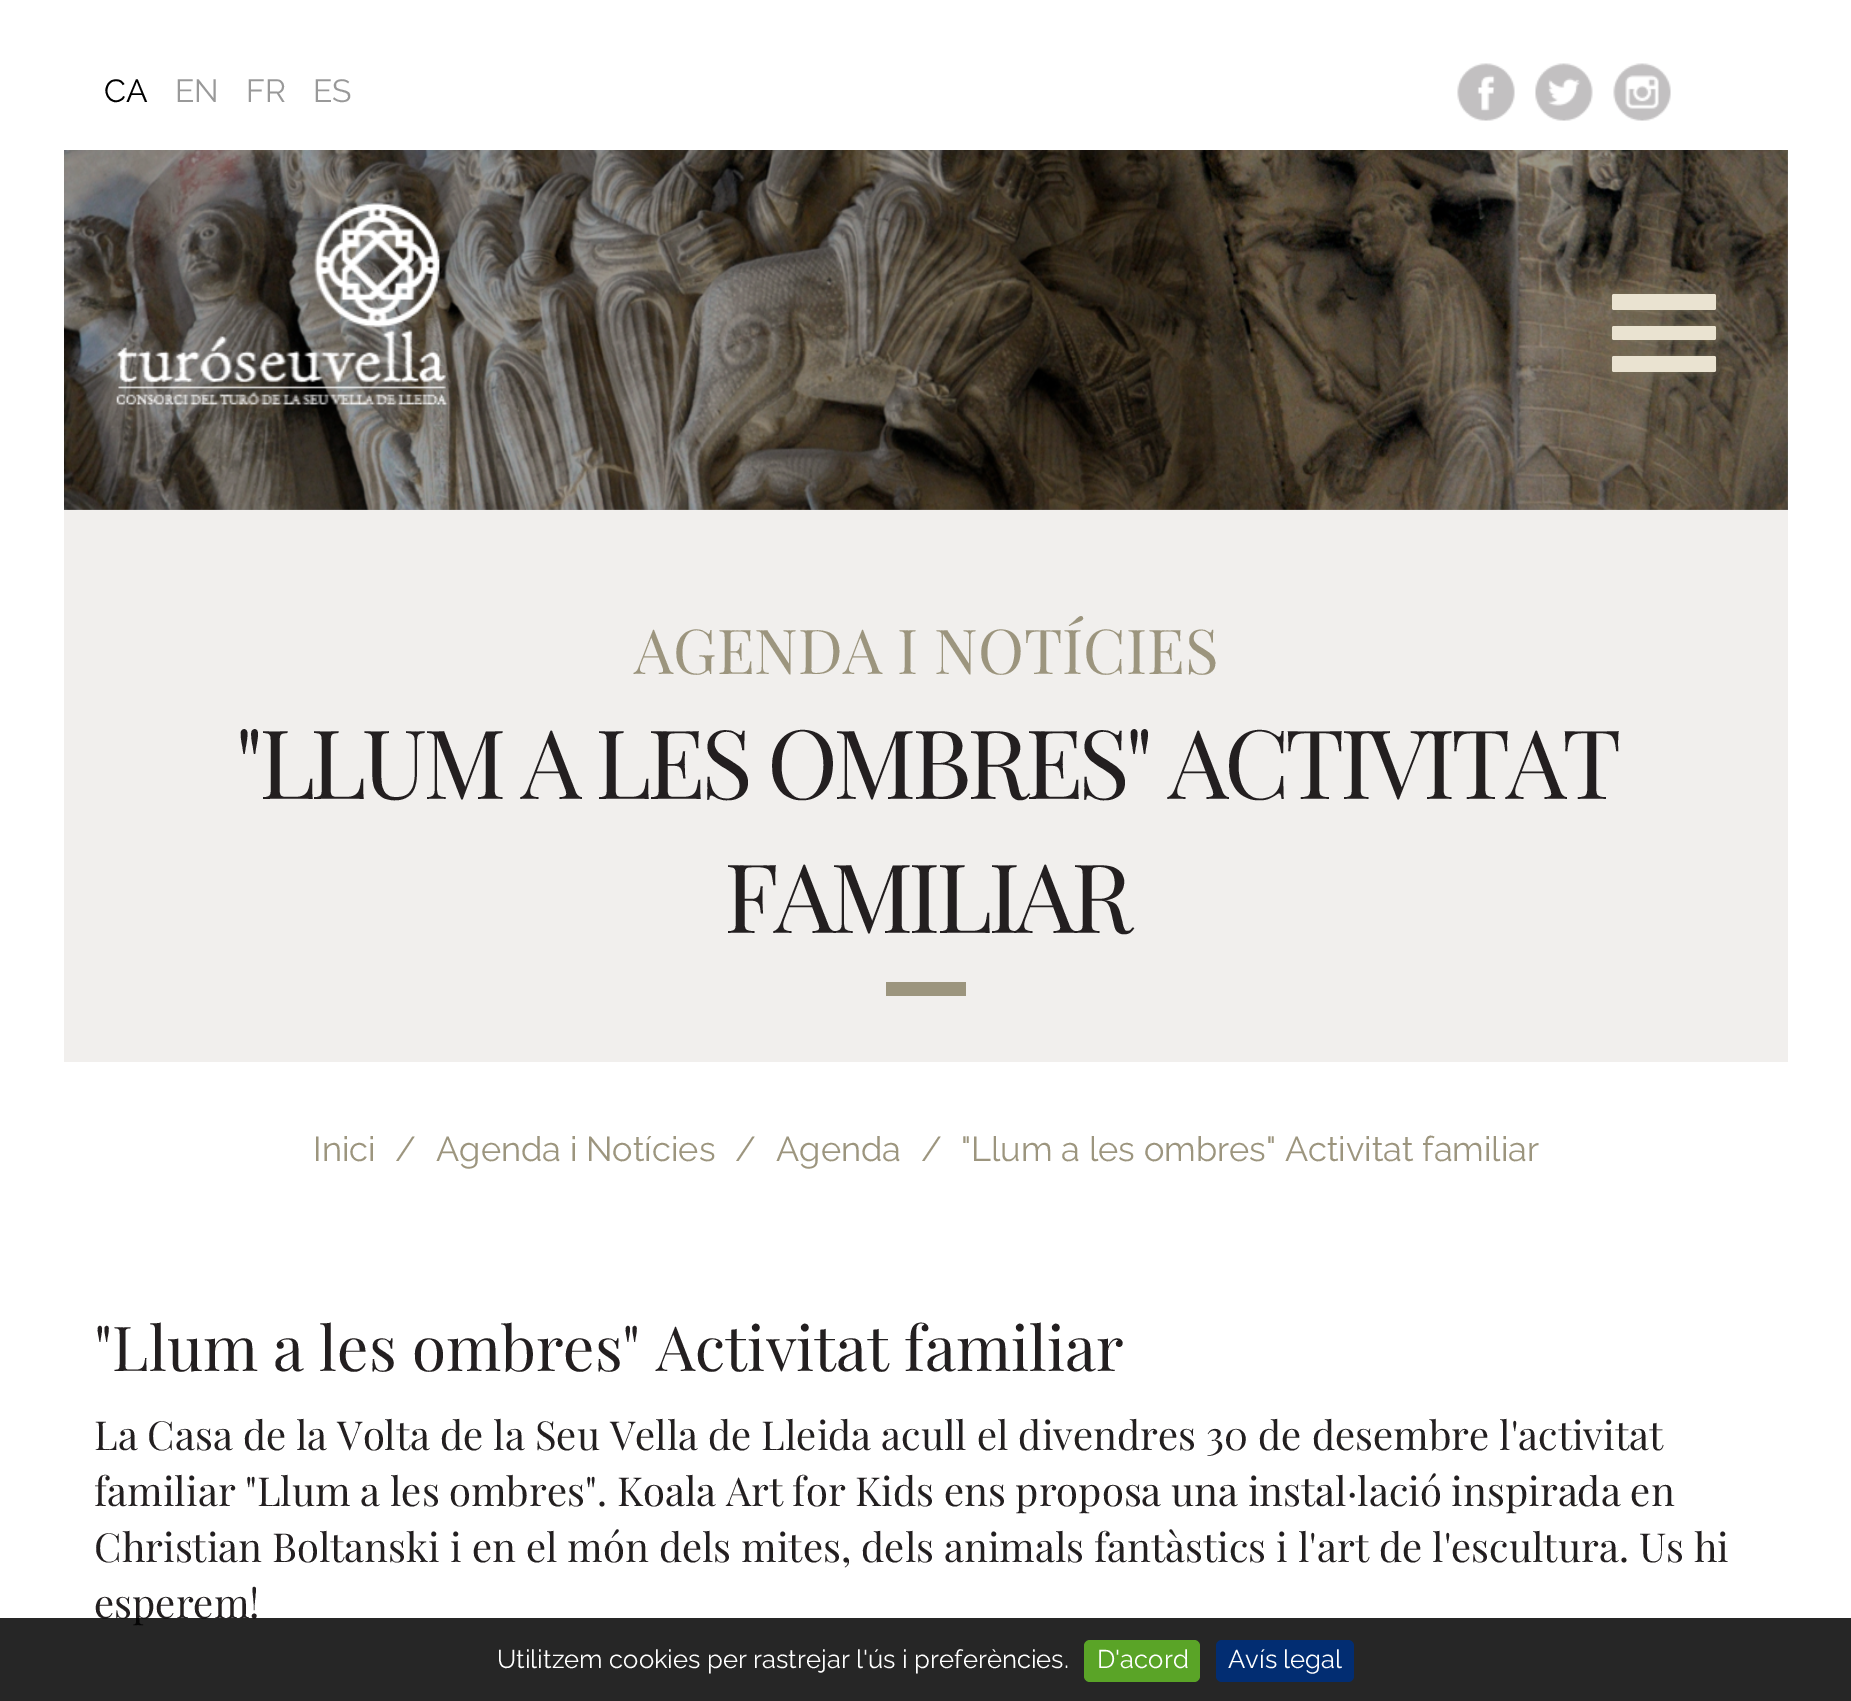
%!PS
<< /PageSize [1851 1701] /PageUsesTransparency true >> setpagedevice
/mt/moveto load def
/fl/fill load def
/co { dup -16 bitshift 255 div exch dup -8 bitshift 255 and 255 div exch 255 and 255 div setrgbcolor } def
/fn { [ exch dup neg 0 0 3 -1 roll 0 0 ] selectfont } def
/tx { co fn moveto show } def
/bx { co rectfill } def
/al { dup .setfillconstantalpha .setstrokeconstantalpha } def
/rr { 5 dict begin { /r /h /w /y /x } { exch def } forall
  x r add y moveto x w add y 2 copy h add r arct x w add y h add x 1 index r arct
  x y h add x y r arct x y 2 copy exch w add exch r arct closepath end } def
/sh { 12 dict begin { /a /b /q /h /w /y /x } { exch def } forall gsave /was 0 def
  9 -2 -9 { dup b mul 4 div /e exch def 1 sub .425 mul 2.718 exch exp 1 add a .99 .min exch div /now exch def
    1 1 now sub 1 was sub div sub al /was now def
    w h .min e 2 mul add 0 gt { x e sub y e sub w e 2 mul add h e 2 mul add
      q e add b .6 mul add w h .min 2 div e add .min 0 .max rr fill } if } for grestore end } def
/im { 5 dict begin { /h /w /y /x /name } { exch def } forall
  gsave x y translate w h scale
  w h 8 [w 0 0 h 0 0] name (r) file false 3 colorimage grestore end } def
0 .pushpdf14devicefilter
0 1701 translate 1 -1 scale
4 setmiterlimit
0 0 1851 1701 16#FFFFFF bx
(media/1.raw) 1457 63 58 58 im
(media/2.raw) 1535 63 58 58 im
(media/3.raw) 1613 63 58 58 im
(media/4.raw) 64 150 1724 360 im
(media/5.raw) 116 202 332 203 im
64 510 1724 552 16#F1EFED bx
886 982 80 14 16#9C957E bx
16#7B745D co
1612 294 104 16 2 6 1 sh
16#EAE3D1 co
1612 294 104 16 2 rr fl
16#7B745D co
1612 326 104 14 2 6 1 sh
16#EAE3D1 co
1612 326 104 14 2 rr fl
16#7B745D co
1612 356 104 16 2 6 1 sh
16#EAE3D1 co
1612 356 104 16 2 rr fl
(CA) 104 102 /Raleway-Regular 32 16#000000 tx
(EN) 175 102 /Raleway-Regular 32 16#999999 tx
(FR) 246 102 /Raleway-Regular 32 16#999999 tx
(ES) 313 102 /Raleway-Regular 32 16#999999 tx
(AGENDA I NOTÍCIES) 634 674 /PlayfairDisplay-Regular 62 16#9C957E tx
/PlayfairDisplay-Regular 96 fn
16#231F20 co
235 799 mt -4.8 0 ("LLUM A LES OMBRES" ACTIVITAT) ashow
724 933 mt -4.8 0 (FAMILIAR) ashow
(Inici) 313 1161 /Raleway-Regular 34.4 16#9C957E tx
(/) 395 1161 /Raleway-Regular 34.4 16#9C957E tx
(Agenda i Notícies) 436 1161 /Raleway-Regular 34.4 16#9C957E tx
(/) 735 1161 /Raleway-Regular 34.4 16#9C957E tx
(Agenda) 776 1161 /Raleway-Regular 34.4 16#9C957E tx
(/) 921 1161 /Raleway-Regular 34.4 16#9C957E tx
("Llum a les ombres" Activitat familiar) 961 1161 /Raleway-Regular 34.4 16#9C957E tx
("Llum a les ombres" Activitat familiar) 94 1371 /PlayfairDisplay-Regular 62 16#231F20 tx
(La Casa de la Volta de la Seu Vella de Lleida acull el divendres 30 de desembre l'activitat) 94 1450 /PlayfairDisplay-Regular 40 16#231F20 tx
94 1506 mt -.3 0 32 (familiar "Llum a les ombres". Koala Art for Kids ens proposa una instal·lació inspirada en) widthshow
(Christian Boltanski i en el món dels mites, dels animals fantàstics i l'art de l'escultura. Us hi) 94 1562 /PlayfairDisplay-Regular 40 16#231F20 tx
(esperem!) 94 1618 /PlayfairDisplay-Regular 40 16#231F20 tx
0.85 al
0 1618 1851 83 16#000000 bx
1 al
(Utilitzem cookies per rastrejar l'ús i preferències.) 497 1668 /Raleway-Regular 25.6 16#FFFFFF tx
16#5AA427 co
1084 1640 116 42 6 rr fl
(D'acord) 1097 1668 /Raleway-Regular 25.6 16#FFFFFF tx
16#022D72 co
1216 1640 138 42 6 rr fl
(Avís legal) 1228 1668 /Raleway-Regular 25.6 16#FFFFFF tx
.poppdf14devicefilter showpage
